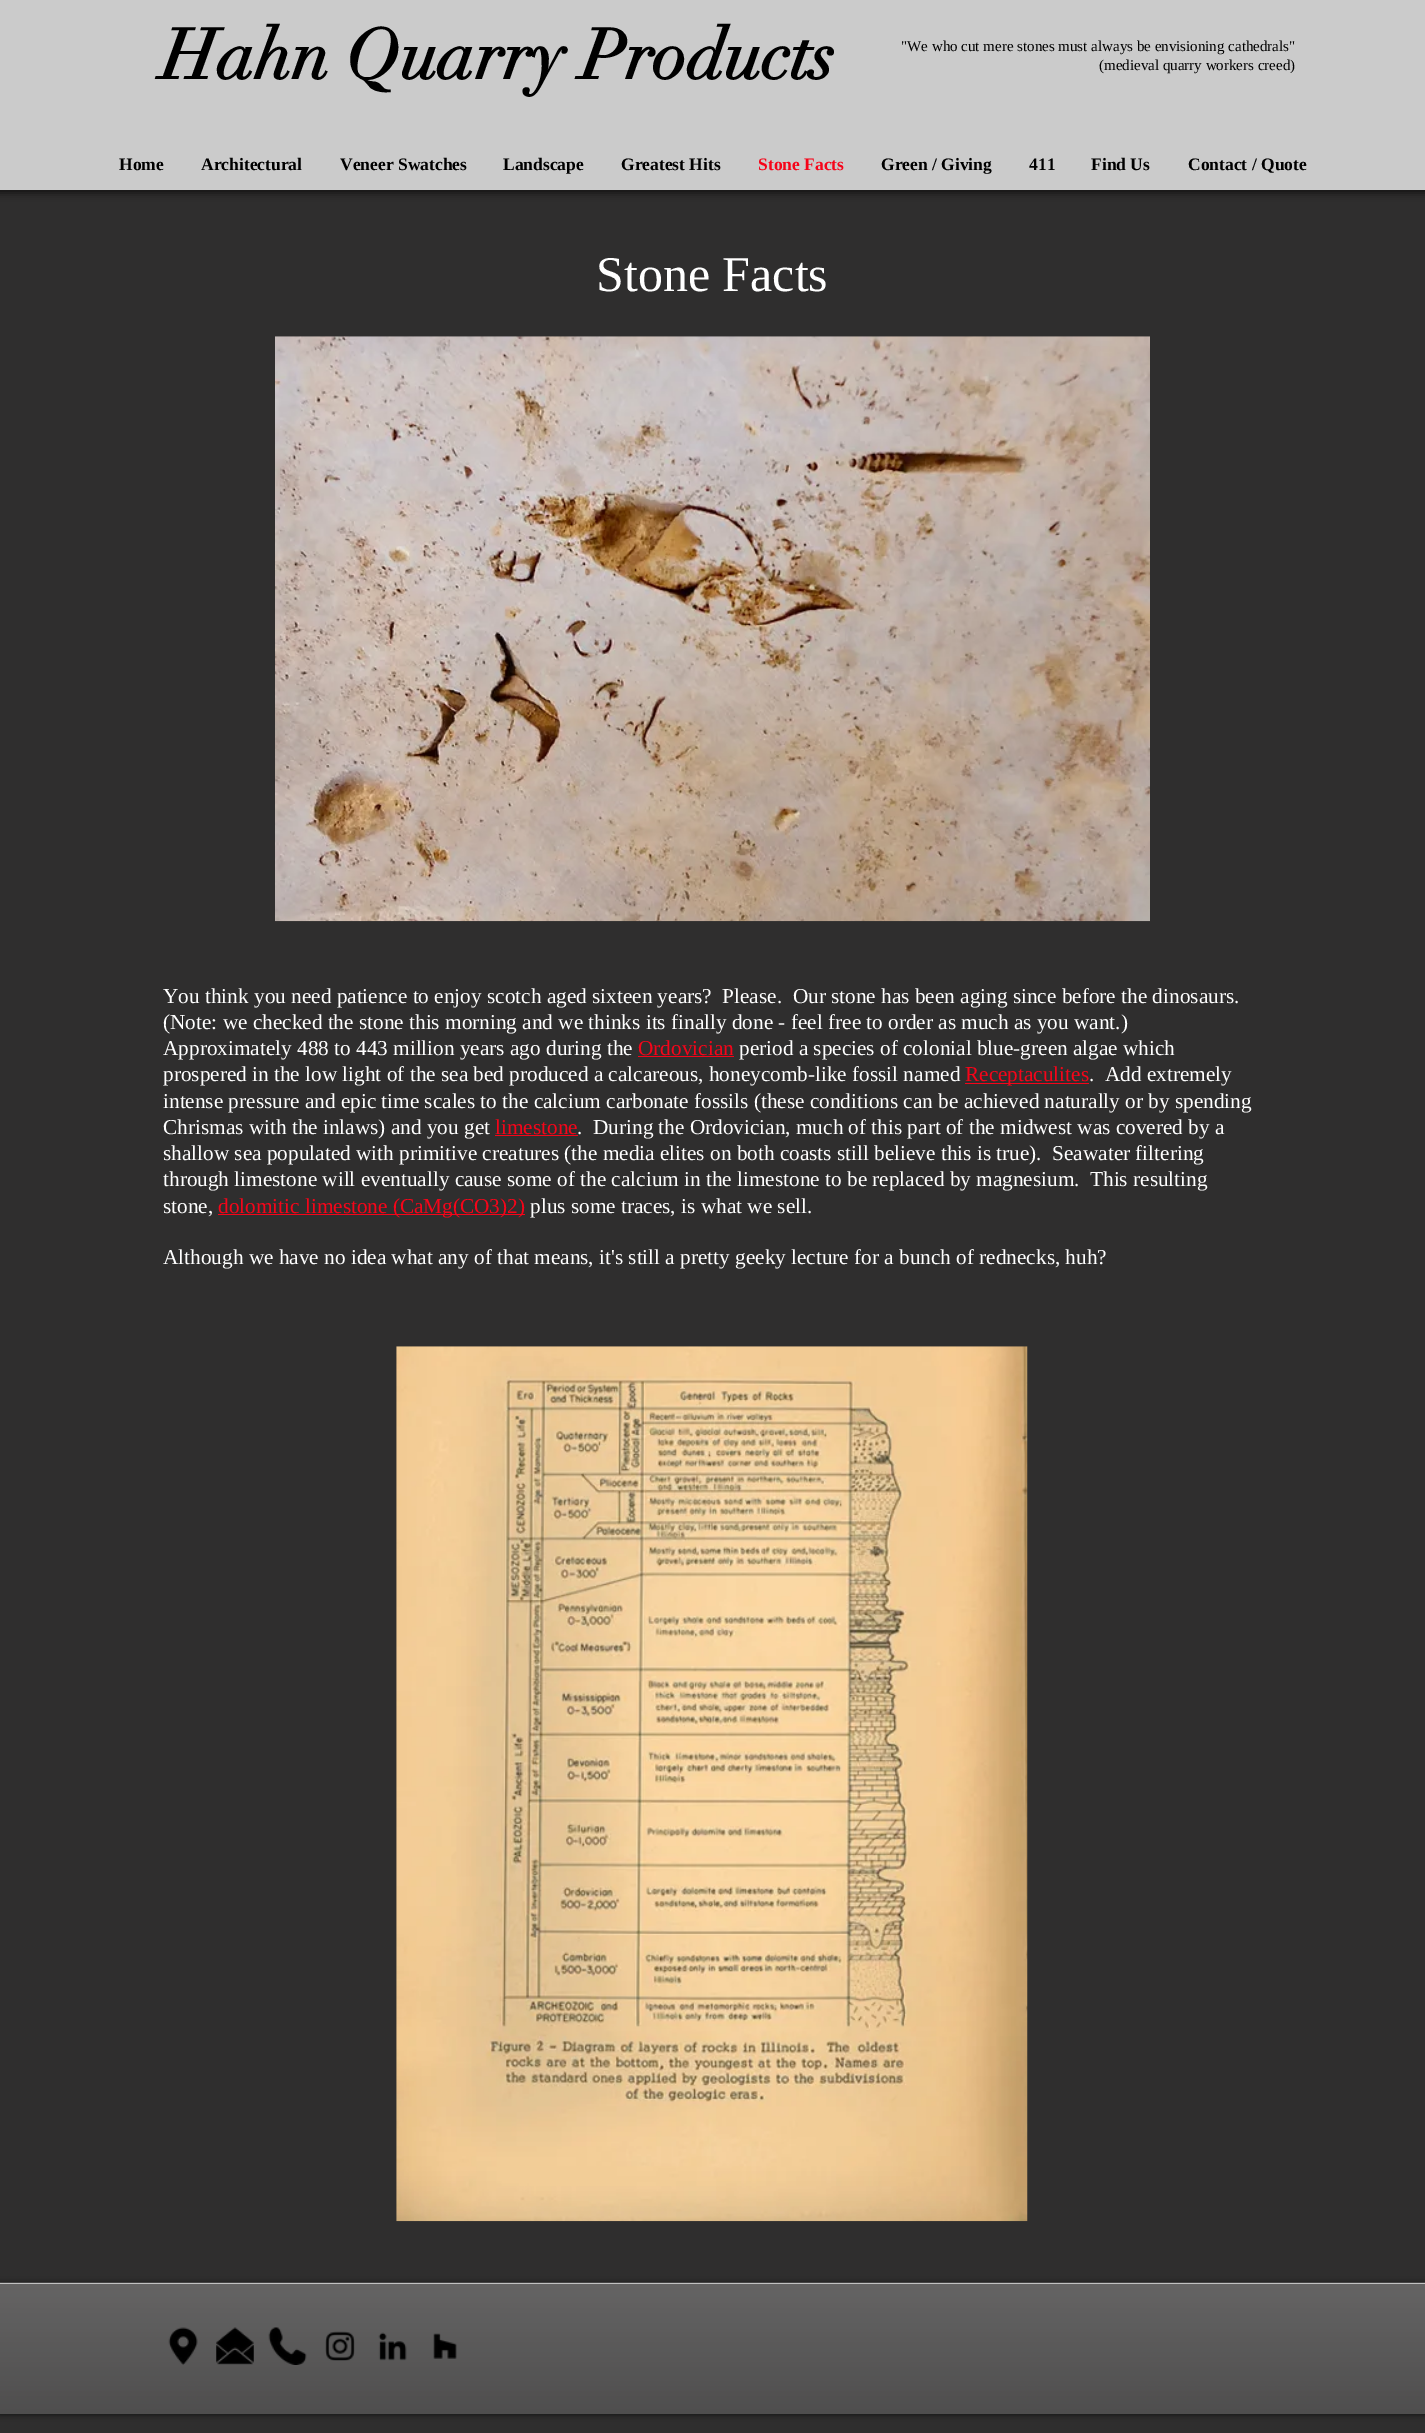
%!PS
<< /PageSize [1425 2433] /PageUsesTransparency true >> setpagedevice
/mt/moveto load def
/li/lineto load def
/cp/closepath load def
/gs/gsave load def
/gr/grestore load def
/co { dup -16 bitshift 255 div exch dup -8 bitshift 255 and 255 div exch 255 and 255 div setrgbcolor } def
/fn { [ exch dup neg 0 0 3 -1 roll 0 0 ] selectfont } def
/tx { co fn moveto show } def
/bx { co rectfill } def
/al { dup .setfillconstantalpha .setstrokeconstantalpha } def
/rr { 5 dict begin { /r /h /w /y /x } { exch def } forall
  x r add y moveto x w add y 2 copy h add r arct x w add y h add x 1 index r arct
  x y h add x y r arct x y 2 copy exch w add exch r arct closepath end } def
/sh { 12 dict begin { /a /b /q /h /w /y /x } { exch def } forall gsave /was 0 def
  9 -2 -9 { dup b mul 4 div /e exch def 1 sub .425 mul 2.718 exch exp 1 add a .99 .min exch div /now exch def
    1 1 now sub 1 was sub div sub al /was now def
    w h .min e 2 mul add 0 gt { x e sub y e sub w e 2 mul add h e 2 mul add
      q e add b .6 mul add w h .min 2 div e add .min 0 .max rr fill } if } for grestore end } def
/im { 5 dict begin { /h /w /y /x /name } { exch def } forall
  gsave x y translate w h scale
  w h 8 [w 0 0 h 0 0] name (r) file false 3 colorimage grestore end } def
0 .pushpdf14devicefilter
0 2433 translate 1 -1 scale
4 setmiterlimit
0 0 1425 2433 16#2F2E2E bx
16#000000 co
-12 -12 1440 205 0 4 .6 sh
0 0 1425 190 16#CBCBCB bx
(media/1.raw) 275 336 875 586 im
638 1056 96 1 16#F60419 bx
965 1083 124 1 16#F60419 bx
495 1135 83 1 16#F60419 bx
218 1214 307 1 16#F60419 bx
(media/2.raw) 396 1346 632 876 im
gs
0 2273 mt 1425 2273 li 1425 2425 li 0 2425 li cp 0 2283 mt 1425 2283 li 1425 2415 li 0 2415 li cp eoclip newpath
16#000000 co
0 2283 1425 132 0 3 .6 sh
gr
(media/3.raw) 0 2282 1425 132 im
0 2414 1425 1 16#1F1F1F bx
0 2283 1425 1 16#C1C1C1 bx
(media/4.raw) 168 2327 30 38 im
(media/5.raw) 216 2327 38 38 im
(media/6.raw) 268 2327 39 38 im
(media/7.raw) 325 2331 30 30 im
(media/8.raw) 378 2332 29 29 im
(media/9.raw) 433 2333 24 26 im
(Hahn Quarry Products) 161 79 /didot-Bold 70 16#000000 tx
("We who cut mere stones must always be envisioning cathedrals") 901 51 /LiberationSerif-Regular 15 16#000000 tx
(\(medieval quarry workers creed\)) 1099 70 /LiberationSerif-Regular 15 16#000000 tx
(Home) 119 170 /LiberationSerif-Bold 17.5 16#000000 tx
(Architectural) 201 170 /LiberationSerif-Bold 17.5 16#000000 tx
(Veneer Swatches) 340 170 /LiberationSerif-Bold 17.5 16#000000 tx
(Landscape) 503 170 /LiberationSerif-Bold 17.5 16#000000 tx
(Greatest Hits) 621 170 /LiberationSerif-Bold 17.5 16#000000 tx
(Stone Facts) 758 170 /LiberationSerif-Bold 17.5 16#F60419 tx
(Green / Giving) 881 170 /LiberationSerif-Bold 17.5 16#000000 tx
(411) 1029 170 /LiberationSerif-Bold 17.5 16#000000 tx
(Find Us) 1091 170 /LiberationSerif-Bold 17.5 16#000000 tx
(Contact / Quote) 1188 170 /LiberationSerif-Bold 17.5 16#000000 tx
(Stone Facts) 596 291 /LiberationSerif-Regular 50 16#FFFFFF tx
(You think you need patience to enjoy scotch aged sixteen years?  Please.  Our stone has been aging since before the dinosaurs.) 163 1003 /LiberationSerif-Regular 21.25 16#FFFFFF tx
(\(Note: we checked the stone this morning and we thinks its finally done - feel free to order as much as you want.\)) 163 1029 /LiberationSerif-Regular 21.25 16#FFFFFF tx
(Approximately 488 to 443 million years ago during the) 163 1055 /LiberationSerif-Regular 21.25 16#FFFFFF tx
(Ordovician) 638 1055 /LiberationSerif-Regular 21.25 16#F60419 tx
(period a species of colonial blue-green algae which) 739 1055 /LiberationSerif-Regular 21.25 16#FFFFFF tx
(prospered in the low light of the sea bed produced a calcareous, honeycomb-like fossil named) 163 1081 /LiberationSerif-Regular 21.25 16#FFFFFF tx
(Receptaculites) 965 1081 /LiberationSerif-Regular 21.25 16#F60419 tx
(.  Add extremely) 1089 1081 /LiberationSerif-Regular 21.25 16#FFFFFF tx
(intense pressure and epic time scales to the calcium carbonate fossils \(these conditions can be achieved naturally or by spending) 163 1108 /LiberationSerif-Regular 21.25 16#FFFFFF tx
(Chrismas with the inlaws\) and you get) 163 1134 /LiberationSerif-Regular 21.25 16#FFFFFF tx
(limestone) 495 1134 /LiberationSerif-Regular 21.25 16#F60419 tx
(.  During the Ordovician, much of this part of the midwest was covered by a) 577 1134 /LiberationSerif-Regular 21.25 16#FFFFFF tx
(shallow sea populated with primitive creatures \(the media elites on both coasts still believe this is true\).  Seawater filtering) 163 1160 /LiberationSerif-Regular 21.25 16#FFFFFF tx
(through limestone will eventually cause some of the calcium in the limestone to be replaced by magnesium.  This resulting) 163 1186 /LiberationSerif-Regular 21.25 16#FFFFFF tx
(stone,) 163 1213 /LiberationSerif-Regular 21.25 16#FFFFFF tx
(dolomitic limestone \(CaMg\(CO3\)2\)) 218 1213 /LiberationSerif-Regular 21.25 16#F60419 tx
(plus some traces, is what we sell.) 530 1213 /LiberationSerif-Regular 21.25 16#FFFFFF tx
(Although we have no idea what any of that means, it's still a pretty geeky lecture for a bunch of rednecks, huh?) 163 1264 /LiberationSerif-Regular 21.25 16#FFFFFF tx
.poppdf14devicefilter showpage
